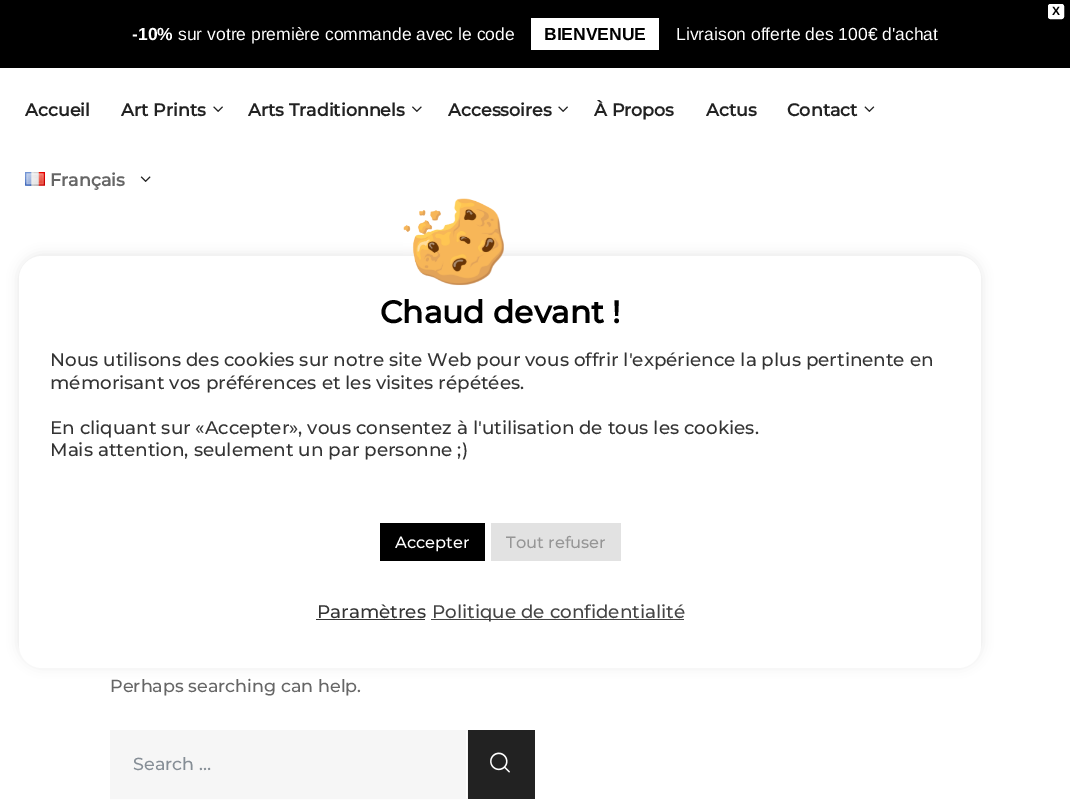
%!PS
<< /PageSize [1070 811] /PageUsesTransparency true >> setpagedevice
/fl/fill load def
/st/stroke load def
/gs/gsave load def
/gr/grestore load def
/co { dup -16 bitshift 255 div exch dup -8 bitshift 255 and 255 div exch 255 and 255 div setrgbcolor } def
/fn { [ exch dup neg 0 0 3 -1 roll 0 0 ] selectfont } def
/tx { co fn moveto show } def
/bx { co rectfill } def
/al { dup .setfillconstantalpha .setstrokeconstantalpha } def
/rr { 5 dict begin { /r /h /w /y /x } { exch def } forall
  x r add y moveto x w add y 2 copy h add r arct x w add y h add x 1 index r arct
  x y h add x y r arct x y 2 copy exch w add exch r arct closepath end } def
/sh { 12 dict begin { /a /b /q /h /w /y /x } { exch def } forall gsave /was 0 def
  9 -2 -9 { dup b mul 4 div /e exch def 1 sub .425 mul 2.718 exch exp 1 add a .99 .min exch div /now exch def
    1 1 now sub 1 was sub div sub al /was now def
    w h .min e 2 mul add 0 gt { x e sub y e sub w e 2 mul add h e 2 mul add
      q e add b .6 mul add w h .min 2 div e add .min 0 .max rr fill } if } for grestore end } def
/im { 5 dict begin { /h /w /y /x /name } { exch def } forall
  gsave x y translate w h scale
  w h 8 [w 0 0 h 0 0] name (r) file false 3 colorimage grestore end } def
0 .pushpdf14devicefilter
0 811 translate 1 -1 scale
4 setmiterlimit
0 0 1070 811 16#FFFFFF bx
0 0 1070 68 16#000000 bx
16#FFFFFF co
1048.5 4.5 15 14 2 rr gs fl gr
st
531 18 128 32 16#FFFFFF bx
(media/1.raw) 213 106 10 6 im
(media/2.raw) 412 106 10 6 im
(media/1.raw) 558 106 10 6 im
(media/3.raw) 864 106 11 6 im
(media/4.raw) 25 172 20 14 im
(media/5.raw) 140 176 11 6 im
111 731 355 67 16#F6F6F6 bx
110.5 730.5 357 68 rectstroke
468 730 67 69 16#222222 bx
(media/6.raw) 490 752 20 21 im
16#ACABAB co
19 255 962 411 23 6 .3 sh
16#FFFFFF co
19 256 962 412 23 rr fl
(media/7.raw) 403 198 101 88 im
380 523 105 38 16#000000 bx
491 523 130 38 16#E2E2E2 bx
316 619 109 1 16#333333 bx
431 619 253 1 16#444444 bx
(X) 1052 15 /LiberationSans-Bold 12 16#000000 tx
(-10%) 132 40 /LiberationSans-Bold 17.5 16#FFFFFF tx
(sur votre première commande avec le code) 178 40 /LiberationSans-Regular 17.5 16#FFFFFF tx
(BIENVENUE) 544 40 /LiberationSans-Bold 17.5 16#000000 tx
(Livraison offerte des 100€ d'achat) 676 40 /LiberationSans-Regular 17.5 16#FFFFFF tx
(Accueil) 25 116 /Montserrat-Bold 17.5 16#222222 tx
(Art Prints) 121 116 /Montserrat-Bold 17.5 16#222222 tx
(Arts Traditionnels) 248 116 /Montserrat-Bold 17.5 16#222222 tx
(Accessoires) 448 116 /Montserrat-Bold 17.5 16#222222 tx
(À Propos) 594 116 /Montserrat-Bold 17.5 16#222222 tx
(Actus) 706 116 /Montserrat-Bold 17.5 16#222222 tx
(Contact) 787 116 /Montserrat-Bold 17.5 16#222222 tx
(Français) 50 186 /Montserrat-Bold 17.5 16#666666 tx
(Perhaps searching can help.) 110 692 /Montserrat-Thin 17.5 16#666666 tx
(Search …) 133 770 /Montserrat-Thin 17.5 16#868E96 tx
(Chaud devant !) 380 323 /Montserrat-Bold 31.25 16#000000 tx
(Nous utilisons des cookies sur notre site Web pour vous offrir l'expérience la plus pertinente en) 50 366 /Montserrat-Thin 18.35 16#333333 tx
(mémorisant vos préférences et les visites répétées.) 50 389 /Montserrat-Thin 18.35 16#333333 tx
(En cliquant sur «Accepter», vous consentez à l'utilisation de tous les cookies.) 50 434 /Montserrat-Thin 18.35 16#333333 tx
(Mais attention, seulement un par personne ;\)) 50 456 /Montserrat-Thin 18.35 16#333333 tx
(Accepter) 395 548 /Montserrat-Thin 16.25 16#FFFFFF tx
(Tout refuser) 506 548 /Montserrat-Thin 16.25 16#969696 tx
(Paramètres) 317 618 /Montserrat-Thin 18.35 16#333333 tx
(Politique de confidentialité) 432 618 /Montserrat-Thin 18.35 16#444444 tx
.poppdf14devicefilter showpage
